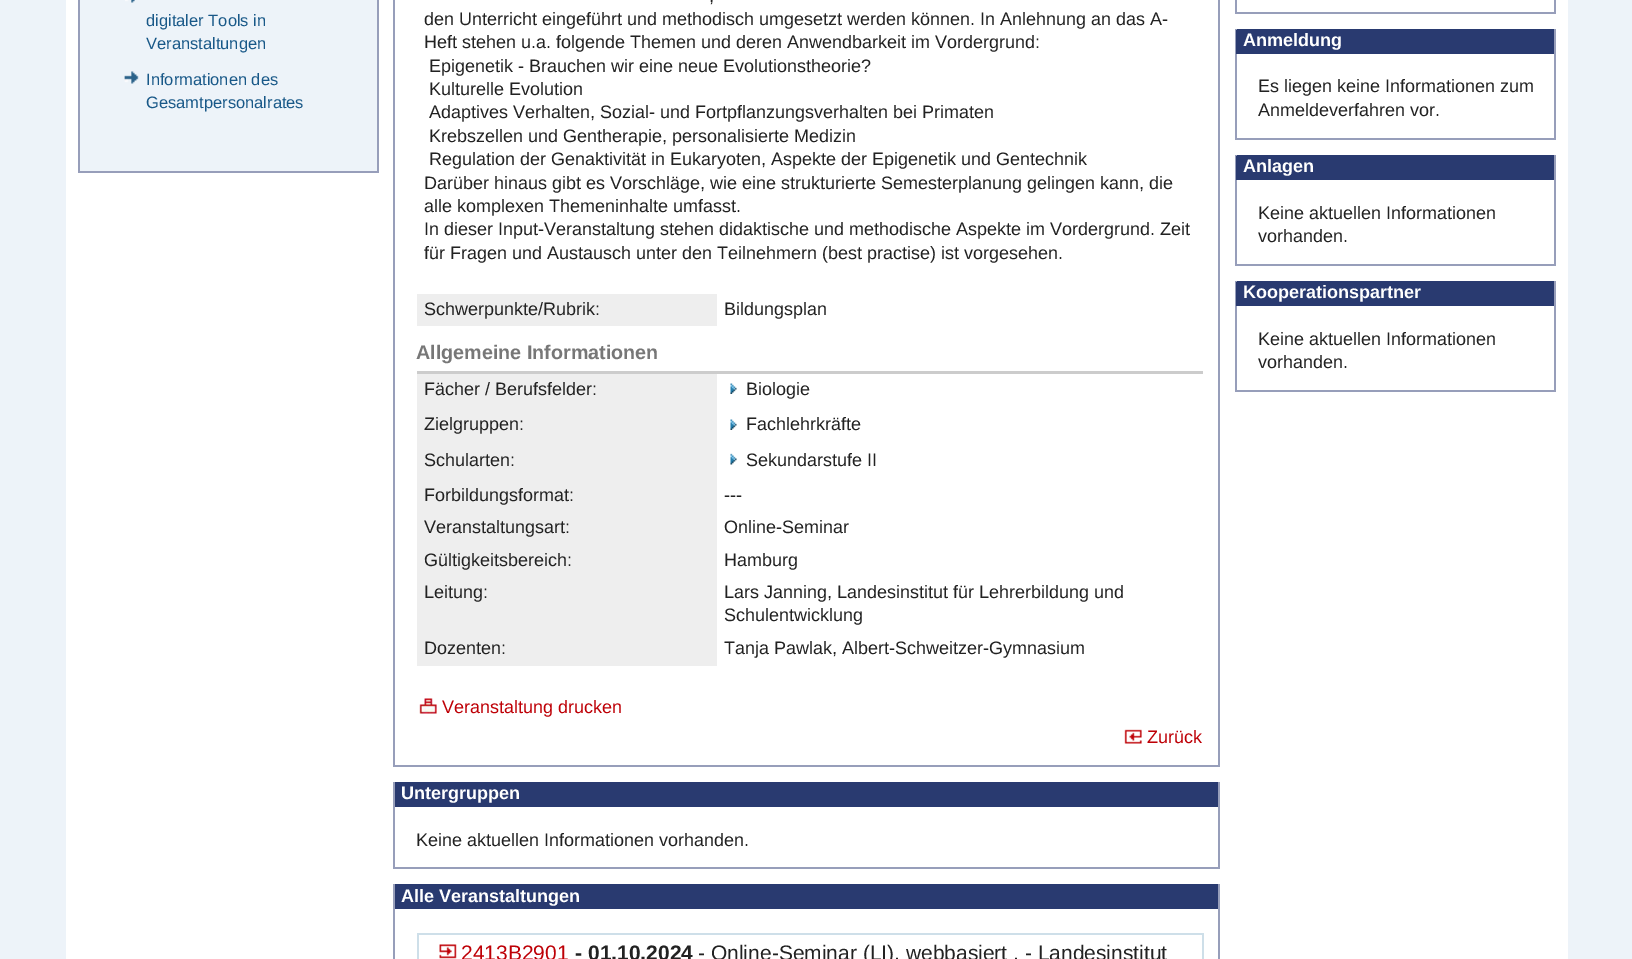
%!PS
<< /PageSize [1632 959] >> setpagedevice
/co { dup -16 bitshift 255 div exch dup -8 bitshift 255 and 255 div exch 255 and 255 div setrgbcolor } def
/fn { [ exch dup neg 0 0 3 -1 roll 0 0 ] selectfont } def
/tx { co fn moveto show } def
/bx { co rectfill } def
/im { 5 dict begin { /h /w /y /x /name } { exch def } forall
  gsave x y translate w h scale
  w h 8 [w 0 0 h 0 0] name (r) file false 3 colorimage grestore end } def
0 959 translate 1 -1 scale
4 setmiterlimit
0 0 1632 959 16#EDF3F9 bx
66 0 1502 959 16#FFFFFF bx
80 0 297 171 16#EDF3F9 bx
377 0 2 173 16#979EBA bx
78 171 300 2 16#979EBA bx
78 0 2 173 16#979EBA bx
(media/1.raw) 125 0 10 3 im
(media/2.raw) 124 71 15 13 im
1218 0 2 767 16#979EBA bx
393 765 827 2 16#979EBA bx
393 0 2 767 16#979EBA bx
417 294 300 32 16#EEEEEE bx
417 371 786 3 16#CCCCCC bx
417 374 300 292 16#EEEEEE bx
(media/3.raw) 730 383 7 11 im
(media/3.raw) 730 419 7 11 im
(media/4.raw) 730 453 7 12 im
(media/5.raw) 419 698 18 16 im
(media/6.raw) 1124 729 18 15 im
393 782 827 1 16#293A70 bx
1218 782 2 87 16#979EBA bx
393 867 827 2 16#979EBA bx
393 782 2 87 16#979EBA bx
395 783 823 24 16#293A70 bx
393 884 827 1 16#293A70 bx
1218 884 2 75 16#979EBA bx
393 884 2 75 16#979EBA bx
395 885 823 24 16#293A70 bx
417 933 786 2 16#CEDFE9 bx
1202 933 2 26 16#CEDFE9 bx
417 933 2 26 16#CEDFE9 bx
(media/7.raw) 439 944 18 15 im
1554 0 2 14 16#979EBA bx
1235 12 321 2 16#979EBA bx
1235 0 2 14 16#979EBA bx
1235 29 321 1 16#293A70 bx
1554 29 2 111 16#979EBA bx
1235 138 321 2 16#979EBA bx
1235 29 2 111 16#979EBA bx
1236 30 318 24 16#293A70 bx
1235 155 321 1 16#293A70 bx
1554 155 2 111 16#979EBA bx
1235 264 321 2 16#979EBA bx
1235 155 2 111 16#979EBA bx
1236 156 318 24 16#293A70 bx
1235 281 321 1 16#293A70 bx
1554 281 2 111 16#979EBA bx
1235 390 321 2 16#979EBA bx
1235 281 2 111 16#979EBA bx
1236 282 318 24 16#293A70 bx
(digitaler Tools in) 146 26 /LiberationSans-Regular 16.5 16#185888 tx
(Veranstaltungen) 146 49 /LiberationSans-Regular 16.5 16#185888 tx
(Informationen des) 146 85 /LiberationSans-Regular 16.5 16#185888 tx
(Gesamtpersonalrates) 146 108 /LiberationSans-Regular 16.5 16#185888 tx
(,) 709 2 /LiberationSans-Regular 18 16#222222 tx
(den Unterricht eingeführt und methodisch umgesetzt werden können. In Anlehnung an das A-) 424 25 /LiberationSans-Regular 18 16#222222 tx
(Heft stehen u.a. folgende Themen und deren Anwendbarkeit im Vordergrund:) 424 48 /LiberationSans-Regular 18 16#222222 tx
( Epigenetik - Brauchen wir eine neue Evolutionstheorie?) 424 72 /LiberationSans-Regular 18 16#222222 tx
( Kulturelle Evolution) 424 95 /LiberationSans-Regular 18 16#222222 tx
( Adaptives Verhalten, Sozial- und Fortpflanzungsverhalten bei Primaten) 424 118 /LiberationSans-Regular 18 16#222222 tx
( Krebszellen und Gentherapie, personalisierte Medizin) 424 142 /LiberationSans-Regular 18 16#222222 tx
( Regulation der Genaktivität in Eukaryoten, Aspekte der Epigenetik und Gentechnik) 424 165 /LiberationSans-Regular 18 16#222222 tx
(Darüber hinaus gibt es Vorschläge, wie eine strukturierte Semesterplanung gelingen kann, die) 424 189 /LiberationSans-Regular 18 16#222222 tx
(alle komplexen Themeninhalte umfasst.) 424 212 /LiberationSans-Regular 18 16#222222 tx
(In dieser Input-Veranstaltung stehen didaktische und methodische Aspekte im Vordergrund. Zeit) 424 235 /LiberationSans-Regular 18 16#222222 tx
(für Fragen und Austausch unter den Teilnehmern \(best practise\) ist vorgesehen.) 424 259 /LiberationSans-Regular 18 16#222222 tx
(Schwerpunkte/Rubrik:) 424 315 /LiberationSans-Regular 18 16#222222 tx
(Bildungsplan) 724 315 /LiberationSans-Regular 18 16#222222 tx
(Allgemeine Informationen) 416 359 /LiberationSans-Bold 19.75 16#777777 tx
(Fächer / Berufsfelder:) 424 395 /LiberationSans-Regular 18 16#222222 tx
(Biologie) 746 395 /LiberationSans-Regular 18 16#222222 tx
(Zielgruppen:) 424 430 /LiberationSans-Regular 18 16#222222 tx
(Fachlehrkräfte) 746 430 /LiberationSans-Regular 18 16#222222 tx
(Schularten:) 424 466 /LiberationSans-Regular 18 16#222222 tx
(Sekundarstufe II) 746 466 /LiberationSans-Regular 18 16#222222 tx
(Forbildungsformat:) 424 501 /LiberationSans-Regular 18 16#222222 tx
(---) 724 501 /LiberationSans-Regular 18 16#222222 tx
(Veranstaltungsart:) 424 533 /LiberationSans-Regular 18 16#222222 tx
(Online-Seminar) 724 533 /LiberationSans-Regular 18 16#222222 tx
(Gültigkeitsbereich:) 424 566 /LiberationSans-Regular 18 16#222222 tx
(Hamburg) 724 566 /LiberationSans-Regular 18 16#222222 tx
(Leitung:) 424 598 /LiberationSans-Regular 18 16#222222 tx
(Lars Janning, Landesinstitut für Lehrerbildung und) 724 598 /LiberationSans-Regular 18 16#222222 tx
(Schulentwicklung) 724 621 /LiberationSans-Regular 18 16#222222 tx
(Dozenten:) 424 654 /LiberationSans-Regular 18 16#222222 tx
(Tanja Pawlak, Albert-Schweitzer-Gymnasium) 724 654 /LiberationSans-Regular 18 16#222222 tx
(Veranstaltung drucken) 442 713 /LiberationSans-Regular 18 16#BE0006 tx
(Zurück) 1147 743 /LiberationSans-Regular 18 16#BE0006 tx
(Untergruppen) 401 799 /LiberationSans-Bold 18 16#FFFFFF tx
(Keine aktuellen Informationen vorhanden.) 416 846 /LiberationSans-Regular 18 16#222222 tx
(Alle Veranstaltungen) 401 902 /LiberationSans-Bold 18 16#FFFFFF tx
(2413B2901) 461 960 /LiberationSans-Regular 21 16#BE0006 tx
(- 01.10.2024) 575 960 /LiberationSans-Bold 21 16#222222 tx
(- Online-Seminar \(LI\), webbasiert , - Landesinstitut) 698 960 /LiberationSans-Regular 21 16#222222 tx
(Anmeldung) 1243 46 /LiberationSans-Bold 18 16#FFFFFF tx
(Es liegen keine Informationen zum) 1258 92 /LiberationSans-Regular 18 16#222222 tx
(Anmeldeverfahren vor.) 1258 116 /LiberationSans-Regular 18 16#222222 tx
(Anlagen) 1243 172 /LiberationSans-Bold 18 16#FFFFFF tx
(Keine aktuellen Informationen) 1258 219 /LiberationSans-Regular 18 16#222222 tx
(vorhanden.) 1258 242 /LiberationSans-Regular 18 16#222222 tx
(Kooperationspartner) 1243 298 /LiberationSans-Bold 18 16#FFFFFF tx
(Keine aktuellen Informationen) 1258 345 /LiberationSans-Regular 18 16#222222 tx
(vorhanden.) 1258 368 /LiberationSans-Regular 18 16#222222 tx
showpage
